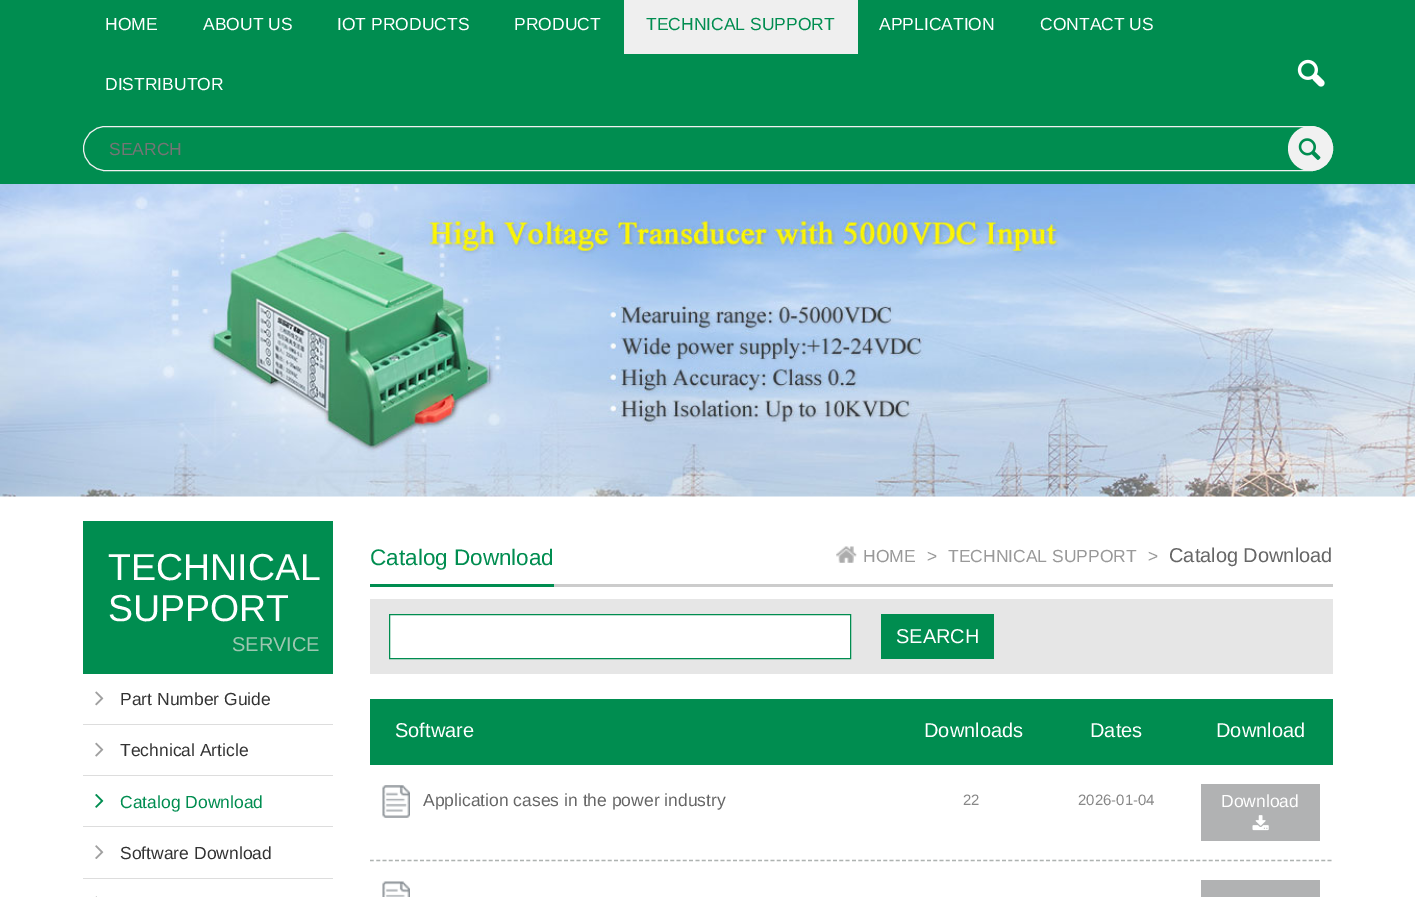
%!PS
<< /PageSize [1415 897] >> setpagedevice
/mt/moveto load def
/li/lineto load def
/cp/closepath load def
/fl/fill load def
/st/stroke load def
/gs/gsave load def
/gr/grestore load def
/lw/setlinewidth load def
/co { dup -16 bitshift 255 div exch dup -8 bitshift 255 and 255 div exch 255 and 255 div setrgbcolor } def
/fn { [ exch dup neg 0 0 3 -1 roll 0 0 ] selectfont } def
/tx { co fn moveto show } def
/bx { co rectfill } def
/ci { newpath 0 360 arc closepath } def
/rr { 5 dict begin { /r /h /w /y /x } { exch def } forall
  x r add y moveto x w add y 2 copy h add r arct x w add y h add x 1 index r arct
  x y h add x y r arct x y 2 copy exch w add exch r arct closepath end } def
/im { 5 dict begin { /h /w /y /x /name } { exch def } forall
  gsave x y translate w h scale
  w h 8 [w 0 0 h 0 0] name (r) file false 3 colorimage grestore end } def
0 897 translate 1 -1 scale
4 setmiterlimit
0 0 1415 897 16#FFFFFF bx
0 0 1415 184 16#008D50 bx
624 0 234 54 16#EFEFEF bx
(media/1.raw) 1297 59 28 28 im
16#F1F1F1 co
83.5 126.5 1249 44 22 rr st
1310.5 148.5 22.5 ci fl
(media/2.raw) 1298 138 23 22 im
(media/3.raw) 0 184 1415 313 im
83 521 250 153 16#008D50 bx
83 724 250 1 16#DDDDDD bx
(media/4.raw) 95 691 9 15 im
83 775 250 1 16#DDDDDD bx
(media/5.raw) 95 742 9 15 im
83 826 250 1 16#DDDDDD bx
(media/6.raw) 95 794 9 14 im
83 878 250 1 16#DDDDDD bx
(media/7.raw) 95 845 9 14 im
(media/8.raw) 95 896 2 1 im
554 584 779 3 16#CCCCCC bx
370 584 184 3 16#008D50 bx
(media/9.raw) 836 546 21 17 im
370 599 963 75 16#E6E6E6 bx
16#FFFFFF co
389.5 614.5 mt 850.5 614.5 li 850.5 658.5 li 389.5 658.5 li cp gs fl gr
16#008D50 co
st
881 614 113 45 16#008D50 bx
370 699 963 66 16#008D50 bx
16#AEB3B1 co
1.2 lw
[3.75 2.51] 0 setdash
370 860.5 mt 1332.5 860.5 li st
(media/10.raw) 382 785 28 33 im
1201 784 119 57 16#B1B2B3 bx
(media/11.raw) 1252 815 17 16 im
(media/12.raw) 382 881 28 16 im
1201 880 119 17 16#B1B2B3 bx
(HOME) 105 30 /LiberationSans-Regular 17.5 16#FFFFFF tx
(ABOUT US) 203 30 /LiberationSans-Regular 17.5 16#FFFFFF tx
(IOT PRODUCTS) 337 30 /LiberationSans-Regular 17.5 16#FFFFFF tx
(PRODUCT) 514 30 /LiberationSans-Regular 17.5 16#FFFFFF tx
(TECHNICAL SUPPORT) 646 30 /LiberationSans-Regular 17.5 16#008D50 tx
(APPLICATION) 879 30 /LiberationSans-Regular 17.5 16#FFFFFF tx
(CONTACT US) 1040 30 /LiberationSans-Regular 17.5 16#FFFFFF tx
(DISTRIBUTOR) 105 90 /LiberationSans-Regular 17.5 16#FFFFFF tx
(SEARCH) 109 155 /LiberationSans-Regular 17.5 16#757575 tx
(TECHNICAL) 108 580 /LiberationSans-Regular 37.5 16#FFFFFF tx
(SUPPORT) 108 621 /LiberationSans-Regular 37.5 16#FFFFFF tx
(SERVICE) 232 651 /LiberationSans-Regular 20 16#9CC7B0 tx
(Part Number Guide) 120 705 /LiberationSans-Regular 17.5 16#333333 tx
(Technical Article) 120 756 /LiberationSans-Regular 17.5 16#333333 tx
(Catalog Download) 120 808 /LiberationSans-Regular 17.5 16#008D50 tx
(Software Download) 120 859 /LiberationSans-Regular 17.5 16#333333 tx
(Catalog Download) 370 565 /LiberationSans-Regular 22.5 16#008D50 tx
(HOME) 863 562 /LiberationSans-Regular 17.5 16#999999 tx
(>) 927 562 /LiberationSans-Regular 17.5 16#999999 tx
(TECHNICAL SUPPORT) 948 562 /LiberationSans-Regular 17.5 16#999999 tx
(>) 1148 562 /LiberationSans-Regular 17.5 16#999999 tx
(Catalog Download) 1169 562 /LiberationSans-Regular 20 16#666666 tx
(SEARCH) 896 643 /LiberationSans-Regular 20 16#FFFFFF tx
(Software) 395 737 /LiberationSans-Regular 20 16#FFFFFF tx
(Downloads) 924 737 /LiberationSans-Regular 20 16#FFFFFF tx
(Dates) 1090 737 /LiberationSans-Regular 20 16#FFFFFF tx
(Download) 1216 737 /LiberationSans-Regular 20 16#FFFFFF tx
(Application cases in the power industry) 423 806 /LiberationSans-Regular 17.5 16#666666 tx
(22) 963 805 /LiberationSans-Regular 15 16#888888 tx
(2026-01-04) 1078 805 /LiberationSans-Regular 15 16#888888 tx
(Download) 1221 807 /LiberationSans-Regular 17.5 16#FFFFFF tx
showpage
